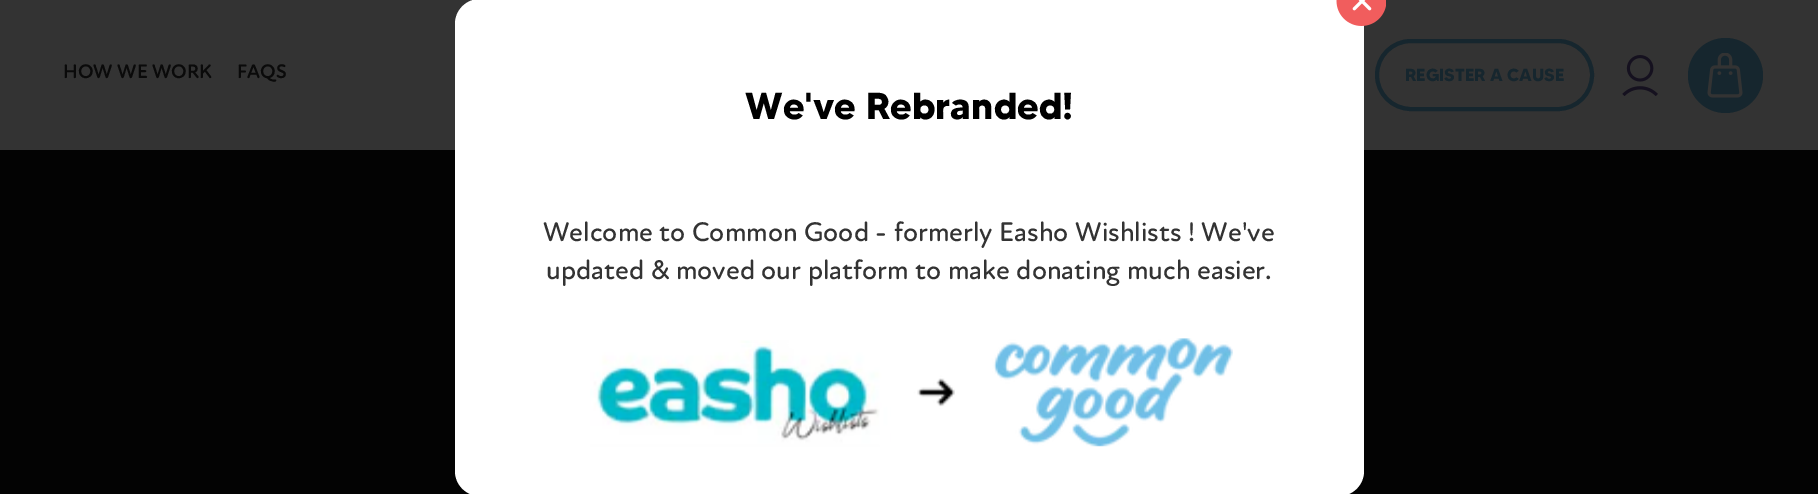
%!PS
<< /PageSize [1818 494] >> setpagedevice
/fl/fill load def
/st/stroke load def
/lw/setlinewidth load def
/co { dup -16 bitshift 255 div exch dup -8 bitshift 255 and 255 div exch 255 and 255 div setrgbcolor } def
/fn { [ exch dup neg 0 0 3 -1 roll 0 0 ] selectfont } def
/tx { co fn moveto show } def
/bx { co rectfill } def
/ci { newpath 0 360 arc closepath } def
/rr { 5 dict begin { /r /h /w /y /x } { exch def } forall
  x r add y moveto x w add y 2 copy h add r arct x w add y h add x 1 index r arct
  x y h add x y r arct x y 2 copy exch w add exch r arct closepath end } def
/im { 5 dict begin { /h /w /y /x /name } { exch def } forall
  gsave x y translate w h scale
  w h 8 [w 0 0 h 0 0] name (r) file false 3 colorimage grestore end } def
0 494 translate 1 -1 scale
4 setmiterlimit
0 0 1818 494 16#030303 bx
0 0 1818 150 16#333333 bx
16#16262E co
4 lw
1377 41 215 68 34 rr st
(media/1.raw) 1622 55 36 41 im
1725.5 75.5 37.5 ci fl
(media/2.raw) 1707 53 36 45 im
16#FFFFFF co
455 -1 909 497 25 rr fl
(media/3.raw) 1336 0 50 26 im
(media/4.raw) 590 338 643 109 im
(HOW WE WORK) 63 78 /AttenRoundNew-Bold 20 16#0A0A0A tx
(FAQS) 237 78 /AttenRoundNew-Bold 20 16#0A0A0A tx
(REGISTER A CAUSE) 1405 81 /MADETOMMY-Bold 17.5 16#16262E tx
(We've Rebranded!) 745 119 /MADETOMMY-Bold 37.5 16#000000 tx
(Welcome to Common Good - formerly Easho Wishlists ! We've) 543 241 /AttenRoundNew-Medium 27.5 16#333333 tx
(updated & moved our platform to make donating much easier.) 546 279 /AttenRoundNew-Medium 27.5 16#333333 tx
showpage
